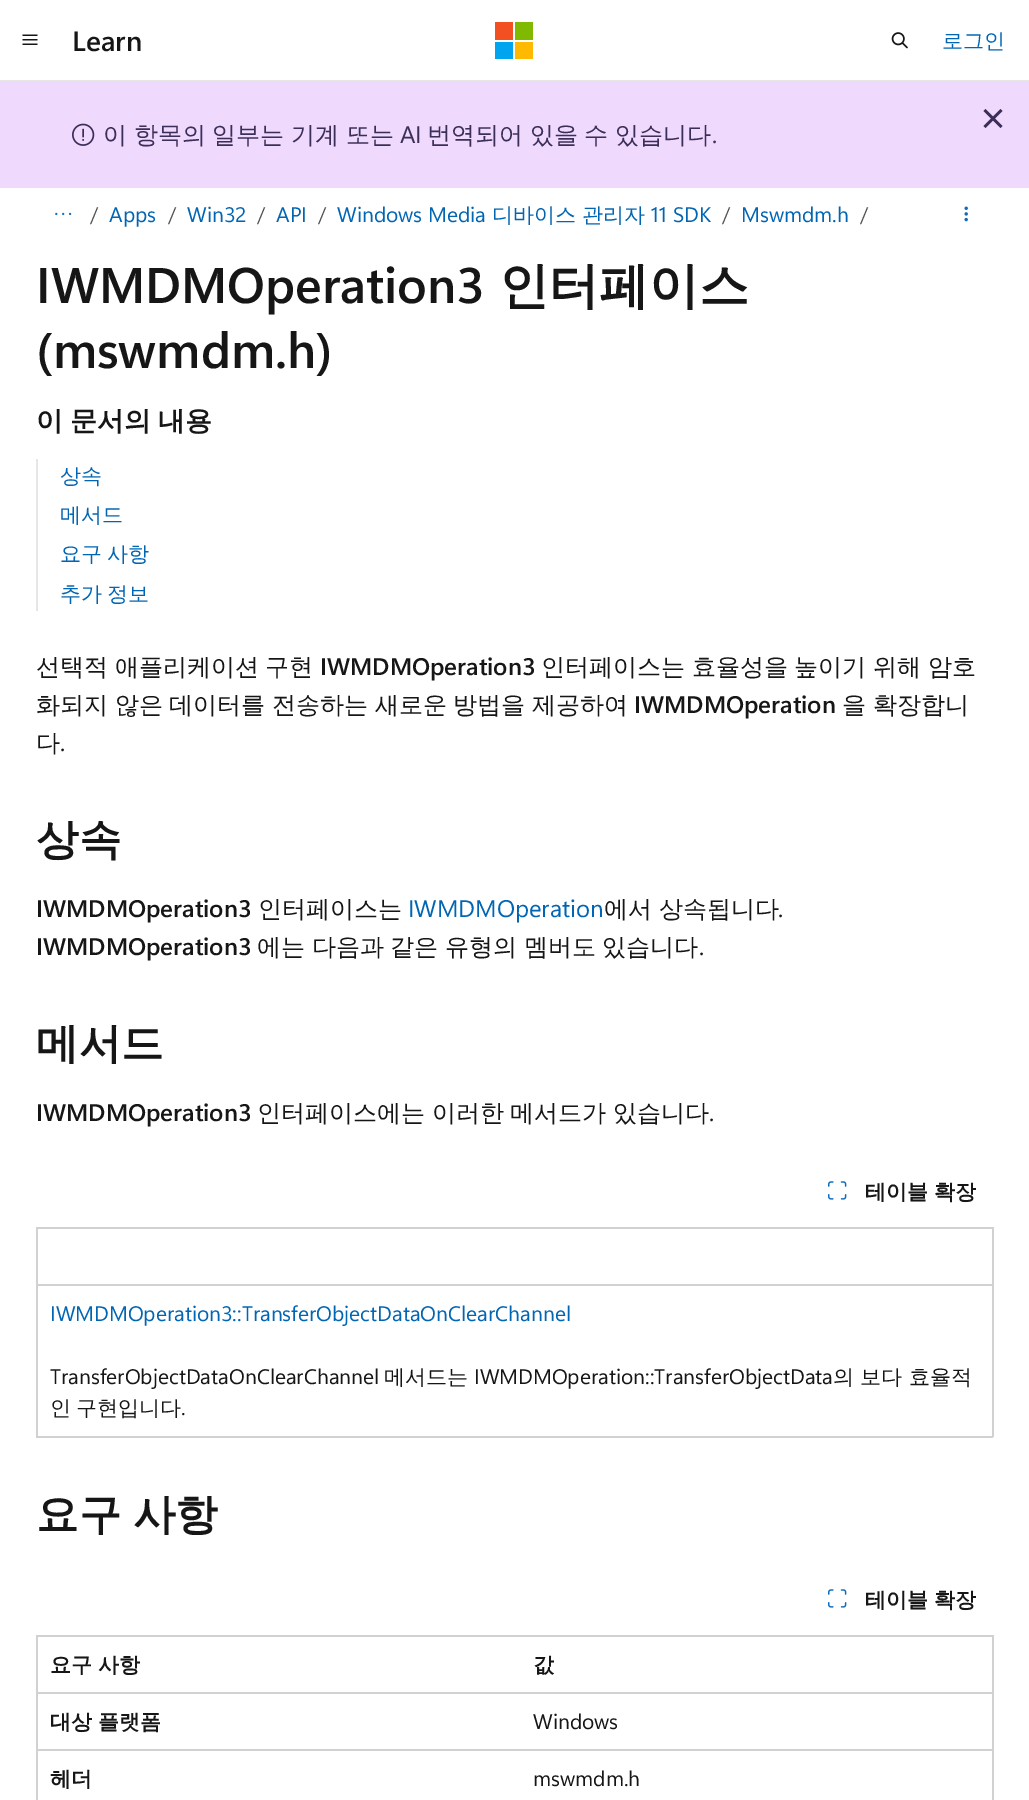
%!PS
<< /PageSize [1029 1800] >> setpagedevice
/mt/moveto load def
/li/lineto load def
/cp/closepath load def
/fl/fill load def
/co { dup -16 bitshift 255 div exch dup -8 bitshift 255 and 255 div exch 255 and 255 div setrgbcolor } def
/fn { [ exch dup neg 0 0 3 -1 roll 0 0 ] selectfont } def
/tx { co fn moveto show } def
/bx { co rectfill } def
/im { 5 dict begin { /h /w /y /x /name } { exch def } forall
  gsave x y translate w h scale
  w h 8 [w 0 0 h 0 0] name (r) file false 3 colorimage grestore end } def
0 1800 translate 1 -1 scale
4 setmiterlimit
0 0 1029 1800 16#FFFFFF bx
0 80 1029 1 16#E6E6E6 bx
(media/1.raw) 22 34 16 11 im
495 22 18 18 16#F25022 bx
515 22 18 18 16#7FBA00 bx
495 42 18 17 16#00A4EF bx
515 42 18 17 16#FFB900 bx
(media/2.raw) 891 32 17 17 im
0 81 1029 107 16#EFD9FD bx
16#3B2E58 co
985.5 109 mt 1002.5 126 li 1000.5 128 li 983.5 111 li cp fl
1000.5 109 mt 1002.5 111 li 985.5 128 li 983.5 126 li cp fl
(media/3.raw) 72 123 23 23 im
(media/4.raw) 55 212 17 4 im
(media/5.raw) 964 206 4 16 im
36 459 2 152 16#E6E6E6 bx
(media/6.raw) 828 1181 19 19 im
36 1227 957 2 16#D1D1D1 bx
992 1227 2 210 16#D1D1D1 bx
36 1436 957 2 16#D1D1D1 bx
36 1227 2 210 16#D1D1D1 bx
36 1284 957 2 16#D1D1D1 bx
(media/6.raw) 828 1589 19 19 im
36 1635 957 2 16#D1D1D1 bx
992 1635 2 165 16#D1D1D1 bx
36 1635 2 165 16#D1D1D1 bx
36 1692 957 2 16#D1D1D1 bx
36 1749 957 2 16#D1D1D1 bx
(Learn) 72 51 /SegoeUI-SemiBold 28 16#161616 tx
(로그인) 942 48 /WenQuanYiZenHei-Medium 21 16#0065B3 tx
/WenQuanYiZenHei-Medium 24 fn
16#3B2E58 co
103 143 mt -.5 0 32 (이 항목의 일부는 기계 또는) widthshow
(AI) 400 143 /SegoeUI-Regular 24 16#3B2E58 tx
/WenQuanYiZenHei-Medium 24 fn
427 143 mt -.5 0 32 (번역되어 있을 수 있습니다) widthshow
(.) 712 143 /SegoeUI-Regular 24 16#3B2E58 tx
(/) 90 222 /SegoeUI-Regular 21 16#505050 tx
(Apps) 109 222 /SegoeUI-Regular 21 16#0065B3 tx
(/) 168 222 /SegoeUI-Regular 21 16#505050 tx
(Win32) 187 222 /SegoeUI-Regular 21 16#0065B3 tx
(/) 257 222 /SegoeUI-Regular 21 16#505050 tx
(API) 276 222 /SegoeUI-Regular 21 16#0065B3 tx
(/) 318 222 /SegoeUI-Regular 21 16#505050 tx
(Windows Media) 337 222 /SegoeUI-Regular 21 16#0065B3 tx
(디바이스) 492 222 /WenQuanYiZenHei-Medium 21 16#0065B3 tx
(관리자) 582 222 /WenQuanYiZenHei-Medium 21 16#0065B3 tx
(11 SDK) 651 222 /SegoeUI-Regular 21 16#0065B3 tx
(/) 722 222 /SegoeUI-Regular 21 16#505050 tx
(Mswmdm.h) 741 222 /SegoeUI-Regular 21 16#0065B3 tx
(/) 860 222 /SegoeUI-Regular 21 16#505050 tx
(IWMDMOperation3) 36 303 /SegoeUI-SemiBold 50 16#161616 tx
(인터페이스) 499 303 /WenQuanYiZenHei-Bold 50 16#161616 tx
(\(mswmdm.h\)) 36 368 /SegoeUI-SemiBold 50 16#161616 tx
/WenQuanYiZenHei-Bold 27 fn
36 430 mt -1 0 32 (이 문서의 내용) widthshow
(상속) 60 483 /WenQuanYiZenHei-Medium 21 16#0065B3 tx
(메서드) 60 522 /WenQuanYiZenHei-Medium 21 16#0065B3 tx
60 561 mt -1 0 32 (요구 사항) widthshow
60 601 mt -1 0 32 (추가 정보) widthshow
/WenQuanYiZenHei-Medium 24 fn
16#161616 co
36 675 mt -.5 0 32 (선택적 애플리케이션 구현) widthshow
(IWMDMOperation3) 320 675 /SegoeUI-SemiBold 24 16#161616 tx
/WenQuanYiZenHei-Medium 24 fn
541 675 mt -.5 0 32 (인터페이스는 효율성을 높이기 위해 암호) widthshow
36 713 mt -.5 0 32 (화되지 않은 데이터를 전송하는 새로운 방법을 제공하여) widthshow
(IWMDMOperation) 634 713 /SegoeUI-SemiBold 24 16#161616 tx
(을 확장합니) 842 713 /WenQuanYiZenHei-Medium 24 16#161616 tx
(다) 36 751 /WenQuanYiZenHei-Medium 24 16#161616 tx
(.) 60 751 /SegoeUI-Regular 24 16#161616 tx
(상속) 36 854 /WenQuanYiZenHei-Bold 42.5 16#161616 tx
(IWMDMOperation3) 36 917 /SegoeUI-SemiBold 24 16#161616 tx
(인터페이스는) 258 917 /WenQuanYiZenHei-Medium 24 16#161616 tx
(IWMDMOperation) 408 917 /SegoeUI-Regular 24 16#0065B3 tx
/WenQuanYiZenHei-Medium 24 fn
16#161616 co
604 917 mt -.5 0 32 (에서 상속됩니다) widthshow
(.) 778 917 /SegoeUI-Regular 24 16#161616 tx
(IWMDMOperation3) 36 955 /SegoeUI-SemiBold 24 16#161616 tx
/WenQuanYiZenHei-Medium 24 fn
257 955 mt -.5 0 32 (에는 다음과 같은 유형의 멤버도 있습니다) widthshow
(.) 699 955 /SegoeUI-Regular 24 16#161616 tx
(메서드) 36 1058 /WenQuanYiZenHei-Bold 42.5 16#161616 tx
(IWMDMOperation3) 36 1121 /SegoeUI-SemiBold 24 16#161616 tx
/WenQuanYiZenHei-Medium 24 fn
257 1121 mt -.5 0 32 (인터페이스에는 이러한 메서드가 있습니다) widthshow
(.) 709 1121 /SegoeUI-Regular 24 16#161616 tx
/WenQuanYiZenHei-Bold 21 fn
865 1199 mt -.5 0 32 (테이블 확장) widthshow
(IWMDMOperation3::TransferObjectDataOnClearChannel) 50 1321 /SegoeUI-Regular 21 16#0065B3 tx
(TransferObjectDataOnClearChannel) 50 1384 /SegoeUI-Regular 21 16#161616 tx
(메서드는) 384 1384 /WenQuanYiZenHei-Medium 21 16#161616 tx
(IWMDMOperation::TransferObjectData) 474 1384 /SegoeUI-Regular 21 16#161616 tx
(의 보다 효율적) 833 1384 /WenQuanYiZenHei-Medium 21 16#161616 tx
50 1415 mt -1 0 32 (인 구현입니다) widthshow
(.) 181 1415 /SegoeUI-Regular 21 16#161616 tx
/WenQuanYiZenHei-Bold 42.5 fn
36 1529 mt -1 0 32 (요구 사항) widthshow
/WenQuanYiZenHei-Bold 21 fn
865 1607 mt -.5 0 32 (테이블 확장) widthshow
(요구 사항) 50 1672 /WenQuanYiZenHei-Bold 21 16#161616 tx
(값) 533 1672 /WenQuanYiZenHei-Bold 21 16#161616 tx
50 1729 mt -.5 0 32 (대상 플랫폼) widthshow
(Windows) 533 1729 /SegoeUI-Regular 21 16#161616 tx
(헤더) 50 1786 /WenQuanYiZenHei-Bold 21 16#161616 tx
(mswmdm.h) 533 1786 /SegoeUI-Regular 21 16#161616 tx
showpage
